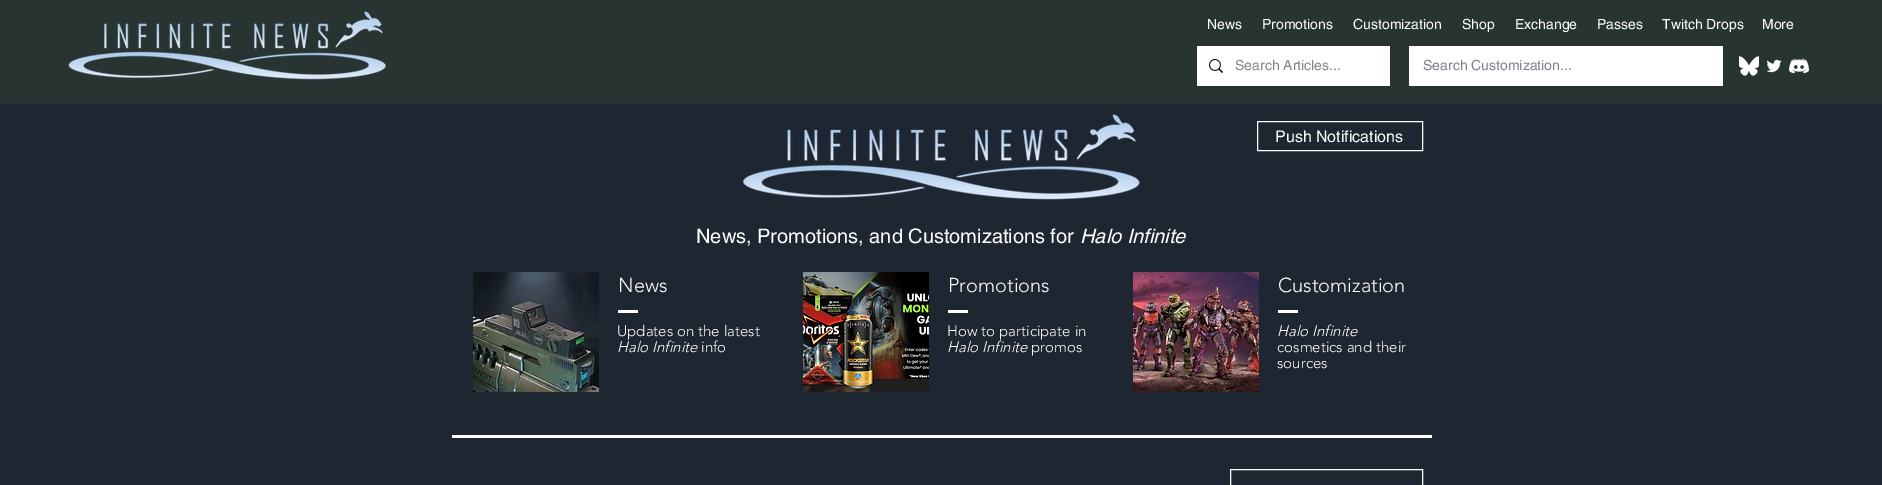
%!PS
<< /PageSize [1882 485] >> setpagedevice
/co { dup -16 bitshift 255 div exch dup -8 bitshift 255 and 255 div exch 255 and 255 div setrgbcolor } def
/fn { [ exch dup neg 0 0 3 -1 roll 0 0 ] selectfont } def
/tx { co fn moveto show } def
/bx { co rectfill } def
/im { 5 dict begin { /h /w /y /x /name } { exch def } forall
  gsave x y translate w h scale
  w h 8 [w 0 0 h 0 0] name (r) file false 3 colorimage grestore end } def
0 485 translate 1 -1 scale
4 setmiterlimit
0 0 1882 485 16#1E2631 bx
0 0 1882 104 16#273432 bx
(media/1.raw) 68 11 318 69 im
1197 46 193 40 16#FFFFFF bx
(media/2.raw) 1209 59 14 14 im
1409 46 314 40 16#FFFFFF bx
(media/3.raw) 1739 56 20 20 im
(media/4.raw) 1766 59 16 14 im
(media/5.raw) 1789 58 20 16 im
(media/6.raw) 742 114 398 86 im
1257.5 121.5 165 29 rectstroke
(media/7.raw) 473 272 126 120 im
618 310 20 3 16#FFFFFF bx
(media/8.raw) 803 272 126 120 im
948 310 20 3 16#FFFFFF bx
(media/9.raw) 1133 272 126 120 im
1278 310 20 3 16#FFFFFF bx
452 435 980 3 16#FFFFFF bx
1230.5 469.5 192 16 rectstroke
(News) 1207 29 /helvetica-Regular 14 16#FFFFFF tx
(Promotions) 1262 29 /helvetica-Regular 14 16#FFFFFF tx
(Customization) 1353 29 /helvetica-Regular 14 16#FFFFFF tx
(Shop) 1462 29 /helvetica-Regular 14 16#FFFFFF tx
(Exchange) 1515 29 /helvetica-Regular 14 16#FFFFFF tx
(Passes) 1597 29 /helvetica-Regular 14 16#FFFFFF tx
(Twitch Drops) 1662 29 /helvetica-Regular 14 16#FFFFFF tx
(More) 1762 29 /helvetica-Regular 14 16#FFFFFF tx
(Search Articles...) 1235 70 /helvetica-Regular 14 16#858585 tx
(Search Customization...) 1423 70 /helvetica-Regular 14 16#7F808A tx
(Push Notifications) 1275 142 /helvetica-Regular 16 16#FFFFFF tx
(News, Promotions, and Customizations for) 696 243 /helvetica-Regular 20 16#FFFFFF tx
(Halo Infinite) 1080 243 /helvetica-Italic 20 16#FFFFFF tx
(News) 618 292 /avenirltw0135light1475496-Light 20 16#FFFFFF tx
(Updates on the latest) 617 336 /avenirltw0135light1475496-Light 15 16#FFFFFF tx
(Halo Infinite) 617 352 /avenirltw0135light1475496-LightItalic 15 16#FFFFFF tx
(info) 701 352 /avenirltw0135light1475496-Light 15 16#FFFFFF tx
(Promotions) 948 292 /avenirltw0135light1475496-Light 20 16#FFFFFF tx
(How to participate in) 947 336 /avenirltw0135light1475496-Light 15 16#FFFFFF tx
(Halo Infinite) 947 352 /avenirltw0135light1475496-LightItalic 15 16#FFFFFF tx
(promos) 1031 352 /avenirltw0135light1475496-Light 15 16#FFFFFF tx
(Customization) 1278 292 /avenirltw0135light1475496-Light 20 16#FFFFFF tx
(Halo Infinite) 1277 336 /avenirltw0135light1475496-LightItalic 15 16#FFFFFF tx
(cosmetics and their) 1277 352 /avenirltw0135light1475496-Light 15 16#FFFFFF tx
(sources) 1277 368 /avenirltw0135light1475496-Light 15 16#FFFFFF tx
showpage
